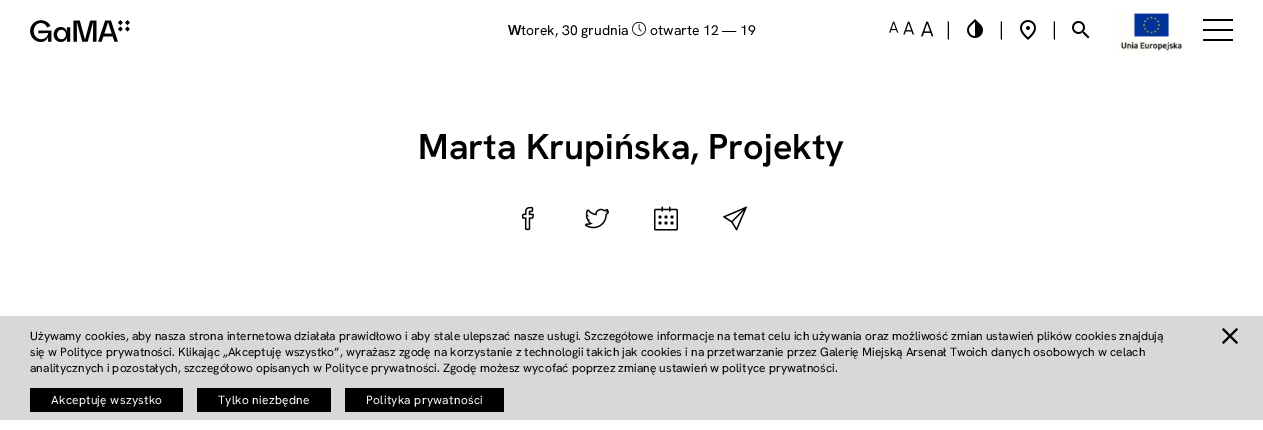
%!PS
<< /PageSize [1263 430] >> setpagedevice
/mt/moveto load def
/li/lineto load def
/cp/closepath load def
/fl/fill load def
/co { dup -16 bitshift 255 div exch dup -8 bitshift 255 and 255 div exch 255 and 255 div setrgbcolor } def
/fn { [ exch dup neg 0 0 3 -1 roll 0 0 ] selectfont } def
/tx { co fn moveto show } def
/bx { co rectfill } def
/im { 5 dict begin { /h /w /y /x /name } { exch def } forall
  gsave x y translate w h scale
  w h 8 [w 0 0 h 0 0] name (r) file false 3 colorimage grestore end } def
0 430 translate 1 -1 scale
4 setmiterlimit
0 0 1263 430 16#FFFFFF bx
(media/1.raw) 30 20 100 22 im
(media/2.raw) 632 21 14 15 im
(media/3.raw) 889 21 10 12 im
(media/4.raw) 903 21 11 14 im
(media/5.raw) 921 21 13 16 im
(media/6.raw) 967 19 16 19 im
(media/7.raw) 1020 20 16 20 im
(media/8.raw) 1072 21 18 18 im
(media/9.raw) 1114 7 69 49 im
1203 29 30 2 16#000000 bx
1203 19 30 2 16#000000 bx
1203 39 30 2 16#000000 bx
(media/10.raw) 521 206 13 25 im
(media/11.raw) 585 208 24 21 im
(media/12.raw) 654 206 24 25 im
(media/13.raw) 723 206 24 25 im
0 316 1263 104 16#DAD7DB bx
16#000000 co
1236.5 328 mt 1238 329.5 li 1223.5 344 li 1222 342.5 li cp fl
1222 329.5 mt 1223.5 328 li 1238 342.5 li 1236.5 344 li cp fl
30 388 153 24 16#000000 bx
197 388 134 24 16#000000 bx
345 388 159 24 16#000000 bx
(W) 508 35 /NotoSans-SemiBold 14 16#000000 tx
(torek, 30 grudnia) 521 35 /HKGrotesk-Regular 14 16#000000 tx
(otwarte 12 — 19) 650 35 /HKGrotesk-Regular 14 16#000000 tx
(|) 946 35 /HKGrotesk-Regular 18 16#000000 tx
(|) 999 35 /HKGrotesk-Regular 18 16#000000 tx
(|) 1052 35 /HKGrotesk-Regular 18 16#000000 tx
(Marta Krupińska, Projekty) 418 159 /HKGrotesk-SemiBold 36 16#000000 tx
(Używamy cookies, aby nasza strona internetowa działała prawidłowo i aby stale ulepszać nasze usługi. Szczegółowe informacje na temat celu ich używania oraz możliwość zmian ustawień plików cookies znajdują) 30 340 /HKGrotesk-Regular 12 16#000000 tx
(się w Polityce prywatności. Klikając „Akceptuję wszystko”, wyrażasz zgodę na korzystanie z technologii takich jak cookies i na przetwarzanie przez Galerię Miejską Arsenał Twoich danych osobowych w celach) 30 356 /HKGrotesk-Regular 12 16#000000 tx
(analitycznych i pozostałych, szczegółowo opisanych w Polityce prywatności. Zgodę możesz wycofać poprzez zmianę ustawień w polityce prywatności.) 30 372 /HKGrotesk-Regular 12 16#000000 tx
16#FFFFFF co
51 404 mt .25 0 (Akceptuję wszystko) ashow
218 404 mt .25 0 (Tylko niezbędne) ashow
366 404 mt .25 0 (Polityka prywatności) ashow
showpage
